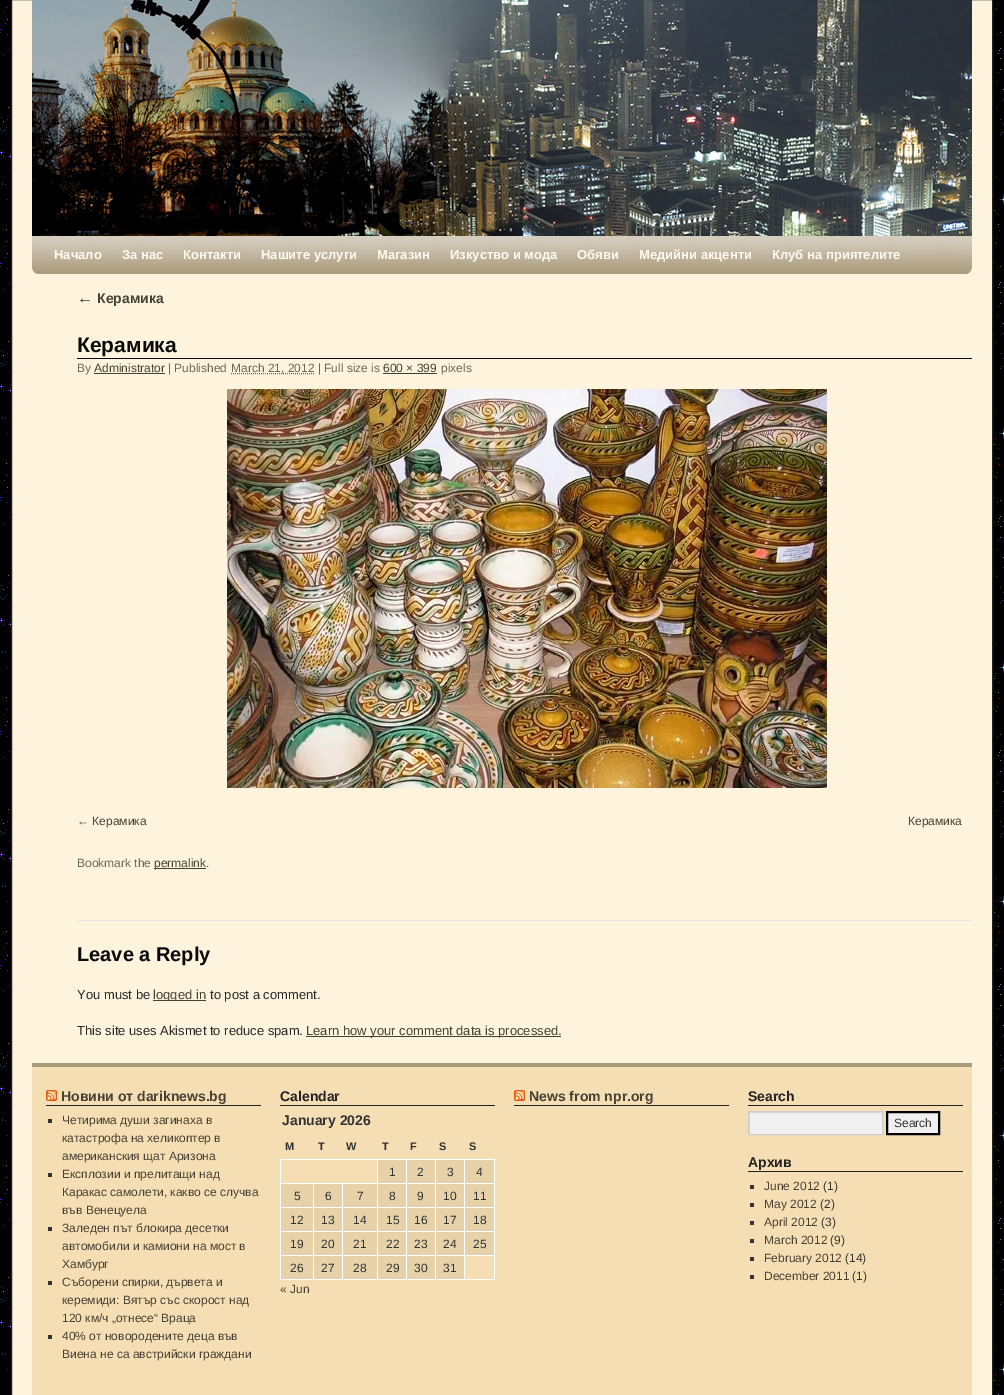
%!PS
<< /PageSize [1004 1395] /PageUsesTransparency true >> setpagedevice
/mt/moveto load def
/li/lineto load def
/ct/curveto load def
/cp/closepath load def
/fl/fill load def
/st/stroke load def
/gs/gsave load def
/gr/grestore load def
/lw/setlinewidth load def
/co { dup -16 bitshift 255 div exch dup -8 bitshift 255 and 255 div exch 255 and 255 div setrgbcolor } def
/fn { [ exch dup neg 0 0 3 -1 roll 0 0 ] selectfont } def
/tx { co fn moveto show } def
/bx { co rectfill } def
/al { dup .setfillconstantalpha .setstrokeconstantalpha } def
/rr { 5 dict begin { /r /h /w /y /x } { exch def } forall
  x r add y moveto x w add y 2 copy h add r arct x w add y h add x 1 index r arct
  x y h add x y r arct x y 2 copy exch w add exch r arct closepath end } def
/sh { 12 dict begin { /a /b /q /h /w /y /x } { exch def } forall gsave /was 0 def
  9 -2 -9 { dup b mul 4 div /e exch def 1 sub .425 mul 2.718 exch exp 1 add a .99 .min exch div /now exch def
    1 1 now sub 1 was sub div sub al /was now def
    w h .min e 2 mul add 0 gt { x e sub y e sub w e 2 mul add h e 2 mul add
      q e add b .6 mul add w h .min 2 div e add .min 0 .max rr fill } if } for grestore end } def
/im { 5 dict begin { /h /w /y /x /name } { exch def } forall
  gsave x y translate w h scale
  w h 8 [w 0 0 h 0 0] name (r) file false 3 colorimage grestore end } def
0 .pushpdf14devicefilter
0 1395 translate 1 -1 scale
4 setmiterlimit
0 0 1004 1395 16#FFFFFF bx
(media/1.raw) 0 0 1004 1395 im
16#000000 co
8 -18 988 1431 13 1.5 .25 sh
16#FEF3DD co
11.5 -.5 mt 992.5 -.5 li 992.5 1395.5 li 11.5 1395.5 li cp gs fl gr
16#222222 co
st
(media/2.raw) 32 0 940 236 im
16#AB9B7D co
32 236 mt 972 236 li 972 267 li 972 271 969 274 965 274 ct 39 274 li 35 274 32 271 32 267 ct cp fl
(media/3.raw) 32 236 940 36 im
77 358 895 1 16#0A0A0A bx
94 373 71 1 16#474134 bx
16#706752 co
[1 1] 0 setdash
231 373.5 mt 314.5 373.5 li st
383 373 54 1 16#474134 bx
(media/4.raw) 227 389 600 399 im
154 868 52 1 16#474134 bx
77 920 895 1 16#E7E7E7 bx
153 1000 53 1 16#474134 bx
306 1036 255 1 16#474134 bx
32 1067 940 328 16#F5DEB3 bx
32 1063 940 4 16#AB9B7D bx
46 1105 215 1 16#222222 bx
(media/5.raw) 46 1090 11 11 im
48 1119 4 4 16#333333 bx
48 1173 4 4 16#333333 bx
48 1227 4 4 16#333333 bx
48 1281 4 4 16#333333 bx
48 1335 4 4 16#333333 bx
280 1105 215 1 16#222222 bx
464 1159 31 1 16#FFFFFF bx
464 1183 31 1 16#FFFFFF bx
464 1207 31 1 16#FFFFFF bx
464 1231 31 1 16#FFFFFF bx
464 1255 31 1 16#FFFFFF bx
494 1255 1 25 16#FFFFFF bx
464 1279 31 1 16#FFFFFF bx
464 1255 1 25 16#FFFFFF bx
435 1255 30 1 16#FFFFFF bx
464 1231 1 25 16#FFFFFF bx
435 1231 30 1 16#FFFFFF bx
464 1207 1 25 16#FFFFFF bx
435 1207 30 1 16#FFFFFF bx
464 1183 1 25 16#FFFFFF bx
435 1183 30 1 16#FFFFFF bx
464 1159 1 25 16#FFFFFF bx
435 1159 30 1 16#FFFFFF bx
435 1279 30 1 16#FFFFFF bx
435 1255 1 25 16#FFFFFF bx
406 1255 30 1 16#FFFFFF bx
435 1231 1 25 16#FFFFFF bx
406 1231 30 1 16#FFFFFF bx
435 1207 1 25 16#FFFFFF bx
406 1207 30 1 16#FFFFFF bx
435 1183 1 25 16#FFFFFF bx
406 1183 30 1 16#FFFFFF bx
435 1159 1 25 16#FFFFFF bx
406 1159 30 1 16#FFFFFF bx
406 1279 30 1 16#FFFFFF bx
406 1255 1 25 16#FFFFFF bx
377 1255 30 1 16#FFFFFF bx
406 1231 1 25 16#FFFFFF bx
377 1231 30 1 16#FFFFFF bx
406 1207 1 25 16#FFFFFF bx
377 1207 30 1 16#FFFFFF bx
406 1183 1 25 16#FFFFFF bx
377 1183 30 1 16#FFFFFF bx
406 1159 1 25 16#FFFFFF bx
377 1159 30 1 16#FFFFFF bx
377 1279 30 1 16#FFFFFF bx
377 1255 1 25 16#FFFFFF bx
342 1255 36 1 16#FFFFFF bx
377 1231 1 25 16#FFFFFF bx
342 1231 36 1 16#FFFFFF bx
377 1207 1 25 16#FFFFFF bx
342 1207 36 1 16#FFFFFF bx
377 1183 1 25 16#FFFFFF bx
342 1183 36 1 16#FFFFFF bx
377 1159 1 25 16#FFFFFF bx
280 1159 98 1 16#FFFFFF bx
342 1279 36 1 16#FFFFFF bx
342 1255 1 25 16#FFFFFF bx
313 1255 30 1 16#FFFFFF bx
342 1231 1 25 16#FFFFFF bx
313 1231 30 1 16#FFFFFF bx
342 1207 1 25 16#FFFFFF bx
313 1207 30 1 16#FFFFFF bx
342 1183 1 25 16#FFFFFF bx
313 1183 30 1 16#FFFFFF bx
313 1279 30 1 16#FFFFFF bx
313 1255 1 25 16#FFFFFF bx
280 1255 34 1 16#FFFFFF bx
313 1231 1 25 16#FFFFFF bx
280 1231 34 1 16#FFFFFF bx
313 1207 1 25 16#FFFFFF bx
280 1207 34 1 16#FFFFFF bx
313 1183 1 25 16#FFFFFF bx
280 1183 34 1 16#FFFFFF bx
280 1279 34 1 16#FFFFFF bx
280 1255 1 25 16#FFFFFF bx
280 1231 1 25 16#FFFFFF bx
280 1207 1 25 16#FFFFFF bx
280 1183 1 25 16#FFFFFF bx
280 1159 1 25 16#FFFFFF bx
378 1160 28 23 16#E6D1A8 bx
407 1160 28 23 16#E6D1A8 bx
436 1160 28 23 16#E6D1A8 bx
465 1160 29 23 16#E6D1A8 bx
494 1231 1 25 16#FFFFFF bx
494 1207 1 25 16#FFFFFF bx
494 1183 1 25 16#FFFFFF bx
494 1159 1 25 16#FFFFFF bx
281 1184 32 23 16#E6D1A8 bx
314 1184 28 23 16#E6D1A8 bx
343 1184 34 23 16#E6D1A8 bx
378 1184 28 23 16#E6D1A8 bx
407 1184 28 23 16#E6D1A8 bx
436 1184 28 23 16#E6D1A8 bx
465 1184 29 23 16#E6D1A8 bx
281 1208 32 23 16#E6D1A8 bx
314 1208 28 23 16#E6D1A8 bx
343 1208 34 23 16#E6D1A8 bx
378 1208 28 23 16#E6D1A8 bx
407 1208 28 23 16#E6D1A8 bx
436 1208 28 23 16#E6D1A8 bx
465 1208 29 23 16#E6D1A8 bx
281 1232 32 23 16#E6D1A8 bx
314 1232 28 23 16#E6D1A8 bx
343 1232 34 23 16#E6D1A8 bx
378 1232 28 23 16#E6D1A8 bx
407 1232 28 23 16#E6D1A8 bx
436 1232 28 23 16#E6D1A8 bx
465 1232 29 23 16#E6D1A8 bx
281 1256 32 23 16#E6D1A8 bx
314 1256 28 23 16#E6D1A8 bx
343 1256 34 23 16#E6D1A8 bx
378 1256 28 23 16#E6D1A8 bx
407 1256 28 23 16#E6D1A8 bx
436 1256 28 23 16#E6D1A8 bx
514 1105 215 1 16#222222 bx
(media/6.raw) 514 1090 11 11 im
748 1105 215 1 16#222222 bx
750 1113 132 21 16#F0F0F0 bx
gs
749 1112 133 22 rectclip
16#D8D8D8 co
650 1013 mt 981 1013 li 981 1233 li 650 1233 li cp 750 1113 mt 883 1113 li 883 1135 li 750 1135 li cp eofill
gr
16#CCCCCC co
[] 0 setdash
748.5 1111.5 134 23 rectstroke
16#F0F0F0 co
887 1112 mt 939 1112 li 939 1134 li 887 1134 li cp gs fl gr
16#000000 co
2 lw
st
748 1171 215 1 16#222222 bx
750 1185 4 4 16#333333 bx
750 1203 4 4 16#333333 bx
750 1221 4 4 16#333333 bx
750 1239 4 4 16#333333 bx
750 1257 4 4 16#333333 bx
750 1275 4 4 16#333333 bx
(Начало) 54 259 /LiberationSans-Bold 13 16#FFFAEF tx
(За нас) 122 259 /LiberationSans-Bold 13 16#FFFAEF tx
(Контакти) 183 259 /LiberationSans-Bold 13 16#FFFAEF tx
(Нашите услуги) 261 259 /LiberationSans-Bold 13 16#FFFAEF tx
(Магазин) 377 259 /LiberationSans-Bold 13 16#FFFAEF tx
(Изкуство и мода) 450 259 /LiberationSans-Bold 13 16#FFFAEF tx
(Обяви) 577 259 /LiberationSans-Bold 13 16#FFFAEF tx
(Медийни акценти) 639 259 /LiberationSans-Bold 13 16#FFFAEF tx
(Клуб на приятелите) 772 259 /LiberationSans-Bold 13 16#FFFAEF tx
(←) 77 303 /LiberationSans-Italic 16 16#333333 tx
(Керамика) 97 303 /LiberationSans-Bold 14 16#474134 tx
(Керамика) 77 352 /LiberationSans-Bold 21 16#0A0A0A tx
(By) 77 372 /LiberationSans-Regular 12 16#706752 tx
(Administrator) 94 372 /LiberationSans-Regular 12 16#474134 tx
(| Published) 168 372 /LiberationSans-Regular 12 16#706752 tx
(March 21, 2012 | Full size is) 231 372 /LiberationSans-Regular 12 16#706752 tx
(600 × 399) 383 372 /LiberationSans-Regular 12 16#474134 tx
(pixels) 441 372 /LiberationSans-Regular 12 16#706752 tx
(← Керамика) 77 825 /LiberationSans-Regular 12 16#474134 tx
(Керамика) 908 825 /LiberationSans-Regular 12 16#474134 tx
(Bookmark the) 77 867 /LiberationSans-Regular 12 16#706752 tx
(permalink) 154 867 /LiberationSans-Regular 12 16#474134 tx
(.) 206 867 /LiberationSans-Regular 12 16#706752 tx
(Leave a Reply) 77 961 /LiberationSans-Bold 20 16#0A0A0A tx
(You must be) 77 999 /LiberationSans-Regular 13 16#292929 tx
gs
77 921 895 80 rectclip
(logged in) 153 999 /LiberationSans-Regular 13 16#474134 tx
gr
(to post a comment.) 210 999 /LiberationSans-Regular 13 16#292929 tx
(This site uses Akismet to reduce spam.) 77 1035 /LiberationSans-Regular 13 16#292929 tx
(Learn how your comment data is processed.) 306 1035 /LiberationSans-Regular 13 16#474134 tx
(Новини от dariknews.bg) 61 1101 /LiberationSans-Bold 14 16#474134 tx
(Четирима души загинаха в) 62 1124 /LiberationSans-Regular 12 16#474134 tx
(катастрофа на хеликоптер в) 62 1142 /LiberationSans-Regular 12 16#474134 tx
(американския щат Аризона) 62 1160 /LiberationSans-Regular 12 16#474134 tx
(Експлозии и прелитащи над) 62 1178 /LiberationSans-Regular 12 16#474134 tx
(Каракас самолети, какво се случва) 62 1196 /LiberationSans-Regular 12 16#474134 tx
(във Венецуела) 62 1214 /LiberationSans-Regular 12 16#474134 tx
(Заледен път блокира десетки) 62 1232 /LiberationSans-Regular 12 16#474134 tx
(автомобили и камиони на мост в) 62 1250 /LiberationSans-Regular 12 16#474134 tx
(Хамбург) 62 1268 /LiberationSans-Regular 12 16#474134 tx
(Съборени спирки, дървета и) 62 1286 /LiberationSans-Regular 12 16#474134 tx
(керемиди: Вятър със скорост над) 62 1304 /LiberationSans-Regular 12 16#474134 tx
(120 км/ч „отнесе“ Враца) 62 1322 /LiberationSans-Regular 12 16#474134 tx
(40% от новородените деца във) 62 1340 /LiberationSans-Regular 12 16#474134 tx
(Виена не са австрийски граждани) 62 1358 /LiberationSans-Regular 12 16#474134 tx
(Calendar) 280 1101 /LiberationSans-Bold 14 16#222222 tx
(January 2026) 282 1125 /LiberationSans-Bold 14 16#333333 tx
(M) 285 1150 /LiberationSans-Bold 11 16#333333 tx
(T) 318 1150 /LiberationSans-Bold 11 16#333333 tx
(W) 346 1150 /LiberationSans-Bold 11 16#333333 tx
(T) 382 1150 /LiberationSans-Bold 11 16#333333 tx
(F) 410 1150 /LiberationSans-Bold 11 16#333333 tx
(S) 439 1150 /LiberationSans-Bold 11 16#333333 tx
(S) 469 1150 /LiberationSans-Bold 11 16#333333 tx
(1) 389 1176 /LiberationSans-Regular 12 16#333333 tx
(2) 417 1176 /LiberationSans-Regular 12 16#333333 tx
(3) 447 1176 /LiberationSans-Regular 12 16#333333 tx
(4) 476 1176 /LiberationSans-Regular 12 16#333333 tx
(5) 294 1200 /LiberationSans-Regular 12 16#333333 tx
(6) 325 1200 /LiberationSans-Regular 12 16#333333 tx
(7) 357 1200 /LiberationSans-Regular 12 16#333333 tx
(8) 389 1200 /LiberationSans-Regular 12 16#333333 tx
(9) 417 1200 /LiberationSans-Regular 12 16#333333 tx
(10) 443 1200 /LiberationSans-Regular 12 16#333333 tx
(11) 473 1200 /LiberationSans-Regular 12 16#333333 tx
(12) 290 1224 /LiberationSans-Regular 12 16#333333 tx
(13) 321 1224 /LiberationSans-Regular 12 16#333333 tx
(14) 353 1224 /LiberationSans-Regular 12 16#333333 tx
(15) 386 1224 /LiberationSans-Regular 12 16#333333 tx
(16) 414 1224 /LiberationSans-Regular 12 16#333333 tx
(17) 443 1224 /LiberationSans-Regular 12 16#333333 tx
(18) 473 1224 /LiberationSans-Regular 12 16#333333 tx
(19) 290 1248 /LiberationSans-Regular 12 16#333333 tx
(20) 321 1248 /LiberationSans-Regular 12 16#333333 tx
(21) 353 1248 /LiberationSans-Regular 12 16#333333 tx
(22) 386 1248 /LiberationSans-Regular 12 16#333333 tx
(23) 414 1248 /LiberationSans-Regular 12 16#333333 tx
(24) 443 1248 /LiberationSans-Regular 12 16#333333 tx
(25) 473 1248 /LiberationSans-Regular 12 16#333333 tx
(26) 290 1272 /LiberationSans-Regular 12 16#333333 tx
(27) 321 1272 /LiberationSans-Regular 12 16#333333 tx
(28) 353 1272 /LiberationSans-Regular 12 16#333333 tx
(29) 386 1272 /LiberationSans-Regular 12 16#333333 tx
(30) 414 1272 /LiberationSans-Regular 12 16#333333 tx
(31) 443 1272 /LiberationSans-Regular 12 16#333333 tx
(« Jun) 280 1293 /LiberationSans-Regular 12 16#474134 tx
(News from npr.org) 529 1101 /LiberationSans-Bold 14 16#474134 tx
(Search) 748 1101 /LiberationSans-Bold 14 16#222222 tx
(Search) 894 1127 /LiberationSans-Regular 12 16#333333 tx
(Архив) 748 1167 /LiberationSans-Bold 14 16#222222 tx
(June 2012) 764 1190 /LiberationSans-Regular 12 16#474134 tx
(\(1\)) 823 1190 /LiberationSans-Regular 12 16#333333 tx
(May 2012) 764 1208 /LiberationSans-Regular 12 16#474134 tx
(\(2\)) 820 1208 /LiberationSans-Regular 12 16#333333 tx
(April 2012) 764 1226 /LiberationSans-Regular 12 16#474134 tx
(\(3\)) 821 1226 /LiberationSans-Regular 12 16#333333 tx
(March 2012) 764 1244 /LiberationSans-Regular 12 16#474134 tx
(\(9\)) 830 1244 /LiberationSans-Regular 12 16#333333 tx
(February 2012) 764 1262 /LiberationSans-Regular 12 16#474134 tx
(\(14\)) 845 1262 /LiberationSans-Regular 12 16#333333 tx
(December 2011) 764 1280 /LiberationSans-Regular 12 16#474134 tx
(\(1\)) 852 1280 /LiberationSans-Regular 12 16#333333 tx
.poppdf14devicefilter showpage
